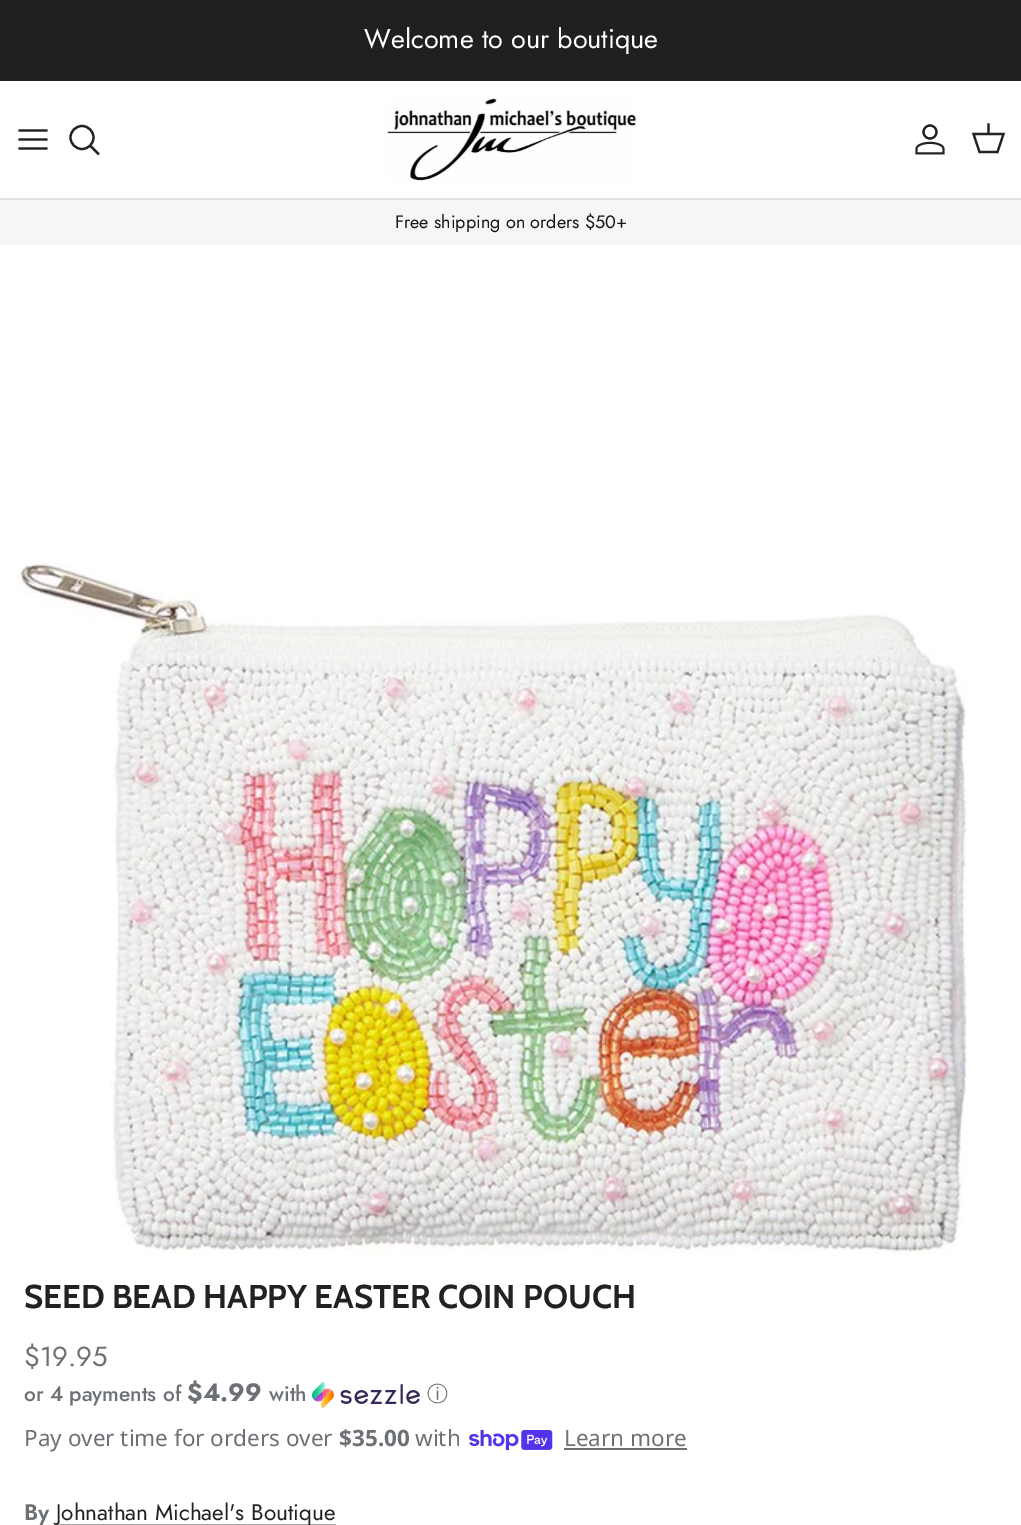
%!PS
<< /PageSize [1021 1525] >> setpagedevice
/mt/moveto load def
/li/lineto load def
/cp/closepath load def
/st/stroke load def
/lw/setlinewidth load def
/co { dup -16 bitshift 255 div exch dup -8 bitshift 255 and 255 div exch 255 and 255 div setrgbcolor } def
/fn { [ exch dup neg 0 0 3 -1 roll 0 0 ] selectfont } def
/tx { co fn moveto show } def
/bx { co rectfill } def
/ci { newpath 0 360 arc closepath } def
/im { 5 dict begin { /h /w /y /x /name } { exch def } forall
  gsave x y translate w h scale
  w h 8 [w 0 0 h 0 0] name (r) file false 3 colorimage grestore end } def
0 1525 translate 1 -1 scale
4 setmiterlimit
0 0 1021 1525 16#FFFFFF bx
0 0 1021 81 16#202020 bx
0 198 1021 2 16#E2E2E2 bx
16#202223 co
2.2 lw
1 setlinecap
1 setlinejoin
19.5 139.5 mt 46.5 139.5 li 19.5 130.5 mt 46.5 130.5 li 19.5 148.5 mt 46.5 148.5 li st
0 setlinecap
0 setlinejoin
82 137.5 11.5 ci st
2 setlinecap
91.5 147 mt 98 153.5 li st
(media/1.raw) 387 98 249 83 im
(media/2.raw) 915 124 30 31 im
0 setlinecap
973.5 134 mt 1003.5 134 li 997.5 152 li 979.5 152 li cp st
2 setlinecap
988.5 133.5 mt 988.5 124.5 li st
0 200 1021 45 16#F4F6F8 bx
(media/3.raw) 17 564 950 691 im
(media/4.raw) 312 1382 108 27 im
(media/5.raw) 469 1430 84 21 im
564 1448 123 2 16#6D7175 bx
56 1524 280 1 16#A6A7A7 bx
(Welcome to our boutique) 364 48 /Jost-Regular 27 16#FFFFFF tx
(Free shipping on orders $50+) 395 228 /Jost-Regular 18 16#171717 tx
(SEED BEAD HAPPY EASTER COIN POUCH) 24 1308 /Cabin-Bold 33 16#202223 tx
($19.95) 24 1366 /Jost-Regular 27.5 16#6D7175 tx
(or 4 payments of) 24 1401 /Jost-Medium 21 16#6D7175 tx
($4.99) 187 1401 /Jost-Bold 25 16#6D7175 tx
(with) 269 1401 /Jost-Medium 21 16#6D7175 tx
(ⓘ) 427 1401 /WenQuanYiZenHei-Medium 21 16#6D7175 tx
(Pay over time for orders over) 24 1446 /NotoSans-Regular 22.5 16#6D7175 tx
($35.00) 339 1446 /NotoSans-Bold 22.5 16#6D7175 tx
(with) 415 1446 /NotoSans-Regular 22.5 16#6D7175 tx
(Learn more) 564 1446 /NotoSans-Regular 22.5 16#6D7175 tx
(By) 24 1520 /Jost-SemiBold 22.5 16#6D7175 tx
(Johnathan Michael's Boutique) 56 1520 /Jost-Regular 22.5 16#202223 tx
showpage
